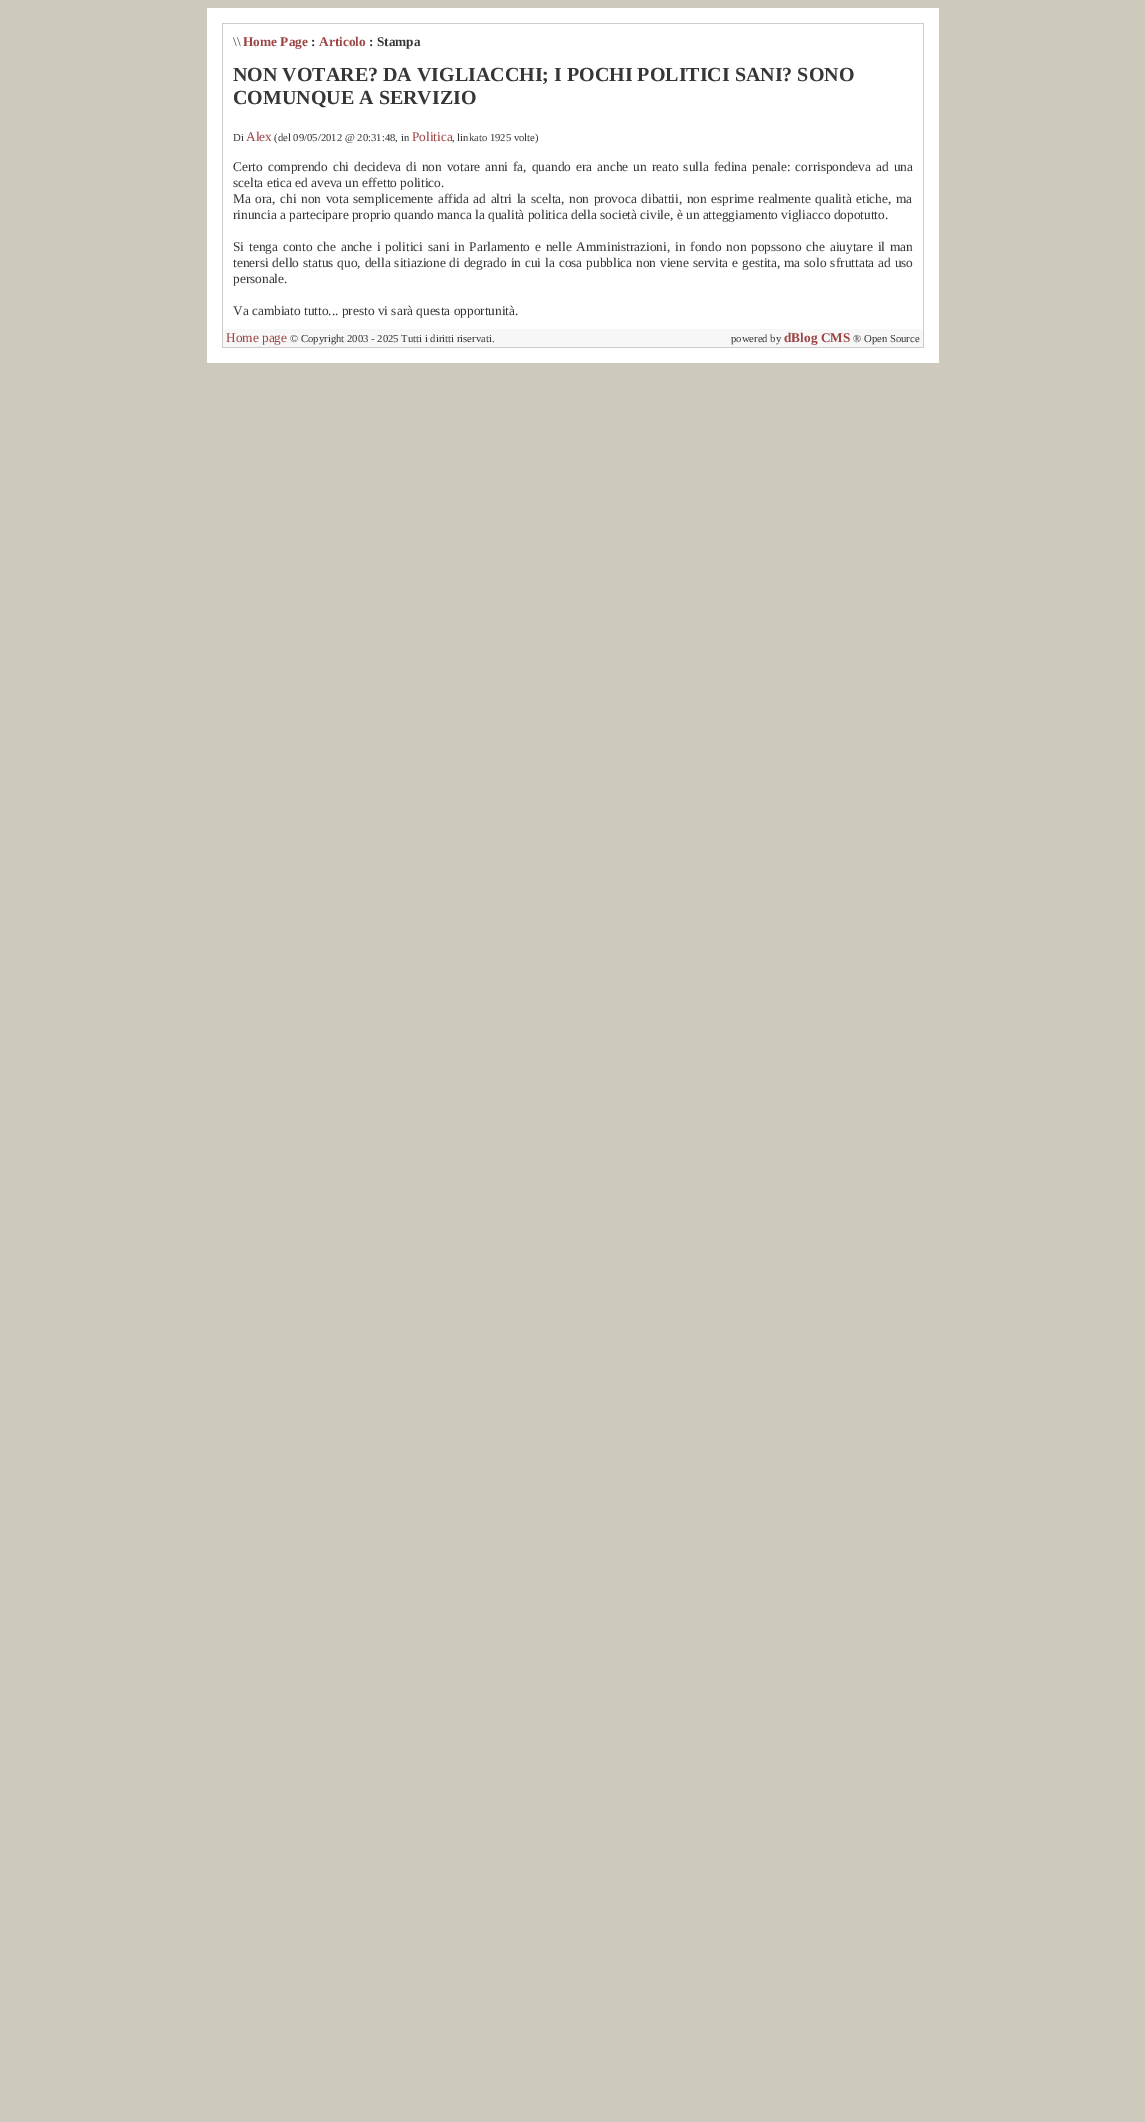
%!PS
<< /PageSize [1145 2122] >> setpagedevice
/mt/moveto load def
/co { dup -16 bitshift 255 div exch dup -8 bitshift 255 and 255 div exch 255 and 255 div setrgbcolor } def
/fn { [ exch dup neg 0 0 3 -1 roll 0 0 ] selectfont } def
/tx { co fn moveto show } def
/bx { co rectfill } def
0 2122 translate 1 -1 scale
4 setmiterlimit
0 0 1145 2122 16#CDCABD bx
207 8 732 355 16#FFFFFF bx
222 23 702 1 16#CCCCCC bx
923 23 1 325 16#CCCCCC bx
222 347 702 1 16#CCCCCC bx
222 23 1 325 16#CCCCCC bx
223 329 700 18 16#F7F7F7 bx
(\\\\) 233 46 /LiberationSerif-Regular 13.33 16#353635 tx
(Home Page) 243 46 /LiberationSerif-Bold 13.33 16#9D4444 tx
(:) 311 46 /LiberationSerif-Bold 13.33 16#353635 tx
(Articolo) 319 46 /LiberationSerif-Bold 13.33 16#9D4444 tx
(: Stampa) 369 46 /LiberationSerif-Bold 13.33 16#353635 tx
(NON VOTARE? DA VIGLIACCHI; I POCHI POLITICI SANI? SONO) 233 81 /LiberationSerif-Bold 20 16#353635 tx
(COMUNQUE A SERVIZIO) 233 104 /LiberationSerif-Bold 20 16#353635 tx
(Di) 233 141 /LiberationSerif-Regular 10.7 16#353635 tx
(Alex) 246 141 /LiberationSerif-Regular 13.33 16#9D4444 tx
(\(del 09/05/2012 @ 20:31:48, in) 274 141 /LiberationSerif-Regular 10.7 16#353635 tx
(Politica) 412 141 /LiberationSerif-Regular 13.33 16#9D4444 tx
(, linkato 1925 volte\)) 452 141 /LiberationSerif-Regular 10.7 16#353635 tx
/LiberationSerif-Regular 13.33 fn
233 171 mt 1.7 0 32 (Certo comprendo chi decideva di non votare anni fa, quando era anche un reato sulla fedina penale: corrispondeva ad una) widthshow
(scelta etica ed aveva un effetto politico.) 233 187 /LiberationSerif-Regular 13.33 16#353635 tx
233 203 mt 1.25 0 32 (Ma ora, chi non vota semplicemente affida ad altri la scelta, non provoca dibattii, non esprime realmente qualità etiche, ma) widthshow
(rinuncia a partecipare proprio quando manca la qualità politica della società civile, è un atteggiamento vigliacco dopotutto.) 233 219 /LiberationSerif-Regular 13.33 16#353635 tx
233 251 mt 1.55 0 32 (Si tenga conto che anche i politici sani in Parlamento e nelle Amministrazioni, in fondo non popssono che aiuytare il man) widthshow
233 267 mt .6 0 32 (tenersi dello status quo, della sitiazione di degrado in cui la cosa pubblica non viene servita e gestita, ma solo sfruttata ad uso) widthshow
(personale.) 233 283 /LiberationSerif-Regular 13.33 16#353635 tx
(Va cambiato tutto... presto vi sarà questa opportunità.) 233 315 /LiberationSerif-Regular 13.33 16#353635 tx
(Home page) 226 342 /LiberationSerif-Regular 13.33 16#9D4444 tx
(© Copyright 2003 - 2025 Tutti i diritti riservati.) 290 342 /LiberationSerif-Regular 10.7 16#353635 tx
(powered by) 731 342 /LiberationSerif-Regular 10.7 16#353635 tx
(dBlog CMS) 784 342 /LiberationSerif-Bold 13.33 16#9D4444 tx
(® Open Source) 853 342 /LiberationSerif-Regular 10.7 16#353635 tx
showpage
